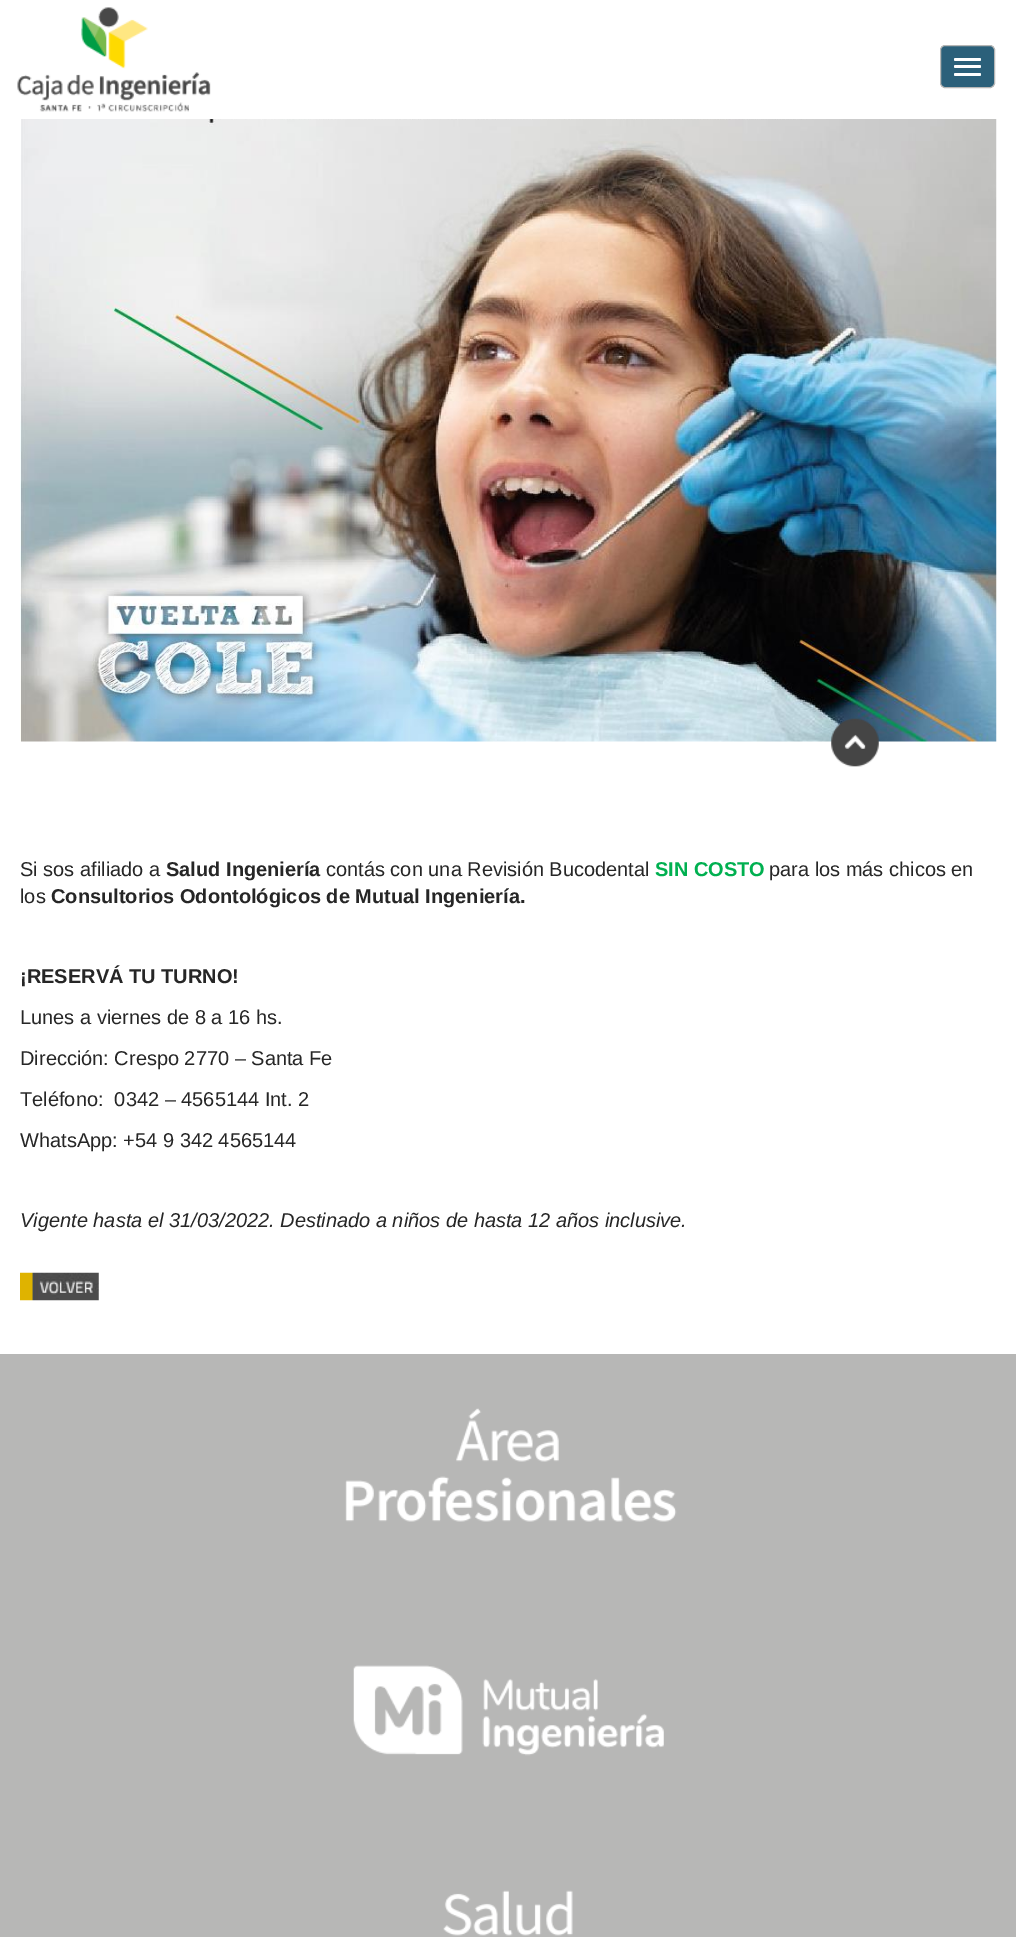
%!PS
<< /PageSize [1016 1937] >> setpagedevice
/fl/fill load def
/st/stroke load def
/gs/gsave load def
/gr/grestore load def
/co { dup -16 bitshift 255 div exch dup -8 bitshift 255 and 255 div exch 255 and 255 div setrgbcolor } def
/fn { [ exch dup neg 0 0 3 -1 roll 0 0 ] selectfont } def
/tx { co fn moveto show } def
/bx { co rectfill } def
/rr { 5 dict begin { /r /h /w /y /x } { exch def } forall
  x r add y moveto x w add y 2 copy h add r arct x w add y h add x 1 index r arct
  x y h add x y r arct x y 2 copy exch w add exch r arct closepath end } def
/im { 5 dict begin { /h /w /y /x /name } { exch def } forall
  gsave x y translate w h scale
  w h 8 [w 0 0 h 0 0] name (r) file false 3 colorimage grestore end } def
0 1937 translate 1 -1 scale
4 setmiterlimit
0 0 1016 1937 16#FFFFFF bx
(media/1.raw) 17 7 194 105 im
16#2B607A co
940.5 45.5 54 42 4.5 rr gs fl gr
16#B7B7B6 co
st
16#FFFFFF co
954 58 27 3 1.5 rr fl
954 65 27 3 1.5 rr fl
954 73 27 3 1.5 rr fl
(media/3.raw) 20 119 977 623 im
(media/2.raw) 831 718 48 49 im
(media/4.raw) 20 1272 79 29 im
0 1354 1016 583 16#B7B7B6 bx
(media/5.raw) 345 1408 332 114 im
(media/6.raw) 353 1665 311 91 im
(media/7.raw) 443 1890 130 46 im
(Si sos afiliado a) 20 876 /LiberationSans-Regular 20 16#262626 tx
(Salud Ingeniería) 166 876 /LiberationSans-Bold 20 16#262626 tx
(contás con una Revisión Bucodental) 326 876 /LiberationSans-Regular 20 16#262626 tx
(SIN COSTO) 655 876 /LiberationSans-Bold 20 16#00B050 tx
(para los más chicos en) 769 876 /LiberationSans-Regular 20 16#262626 tx
(los) 20 903 /LiberationSans-Regular 20 16#262626 tx
(Consultorios Odontológicos de Mutual Ingeniería.) 51 903 /LiberationSans-Bold 20 16#262626 tx
(¡RESERVÁ TU TURNO!) 20 983 /LiberationSans-Bold 20 16#262626 tx
(Lunes a viernes de 8 a 16 hs.) 20 1024 /LiberationSans-Regular 20 16#262626 tx
(Dirección: Crespo 2770 – Santa Fe) 20 1065 /LiberationSans-Regular 20 16#262626 tx
(Teléfono:  0342 – 4565144 Int. 2) 20 1106 /LiberationSans-Regular 20 16#262626 tx
(WhatsApp: +54 9 342 4565144) 20 1147 /LiberationSans-Regular 20 16#262626 tx
(Vigente hasta el 31/03/2022. Destinado a niños de hasta 12 años inclusive.) 20 1227 /LiberationSans-Italic 20 16#262626 tx
showpage
